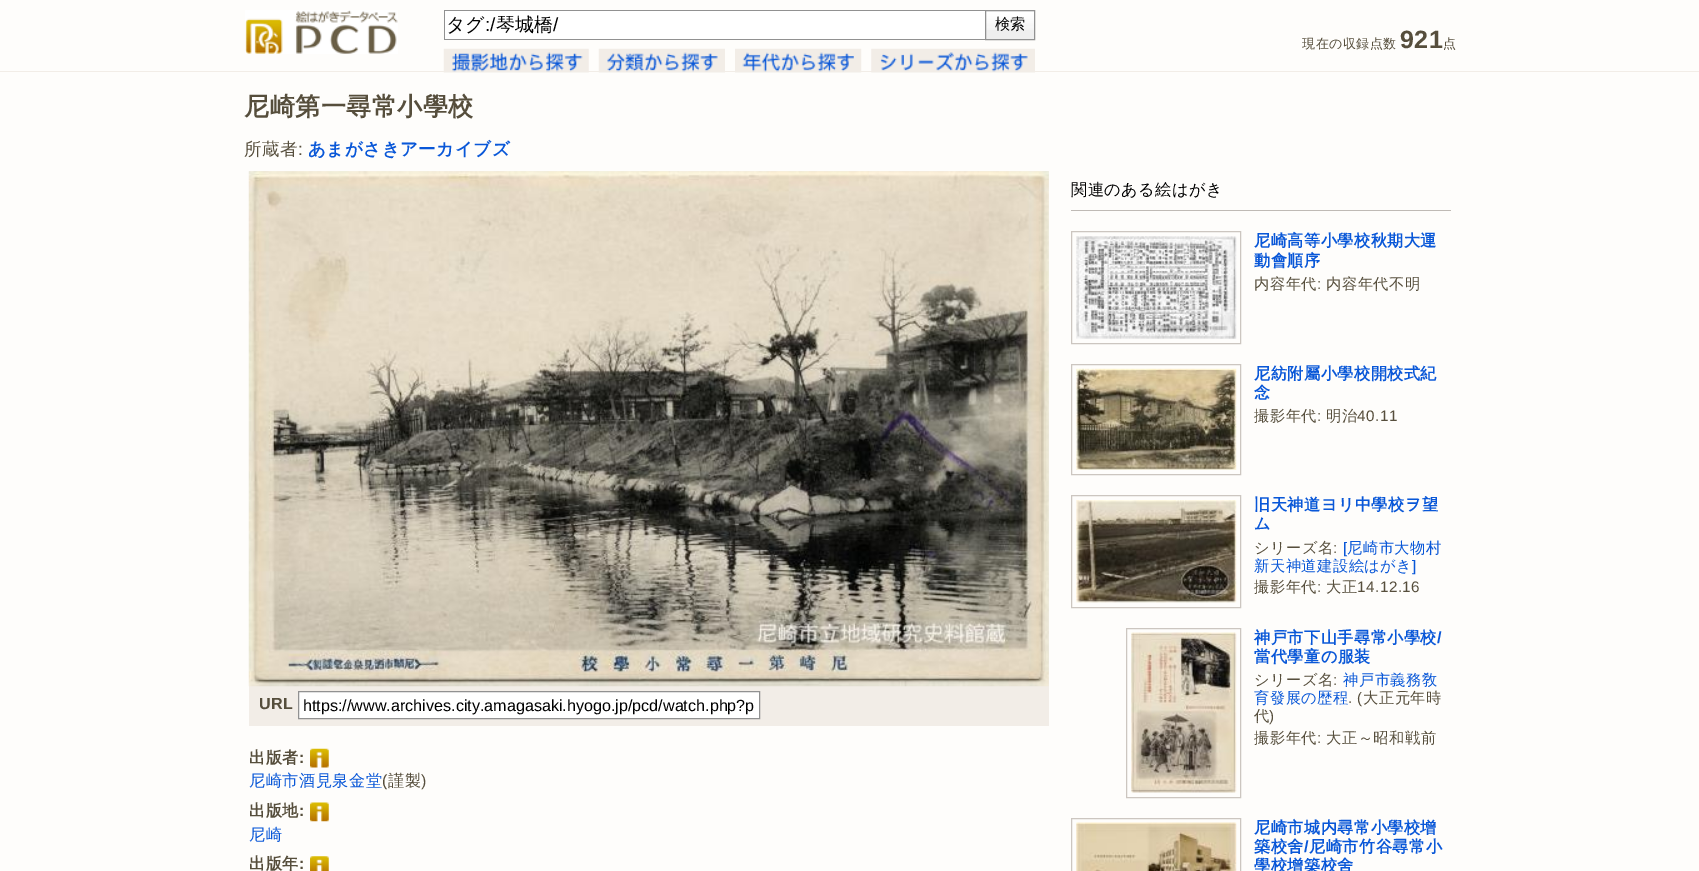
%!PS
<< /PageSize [1699 871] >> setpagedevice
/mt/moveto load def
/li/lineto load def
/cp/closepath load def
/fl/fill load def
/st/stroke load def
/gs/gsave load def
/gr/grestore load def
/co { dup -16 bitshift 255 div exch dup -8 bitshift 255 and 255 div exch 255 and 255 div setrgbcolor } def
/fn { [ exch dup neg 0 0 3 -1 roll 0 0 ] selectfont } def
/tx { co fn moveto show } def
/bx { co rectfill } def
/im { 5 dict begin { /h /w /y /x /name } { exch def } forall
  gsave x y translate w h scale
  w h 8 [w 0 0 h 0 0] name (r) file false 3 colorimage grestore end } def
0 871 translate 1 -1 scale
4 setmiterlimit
0 0 1699 871 16#FEFDFB bx
0 71 1699 1 16#F2EDE7 bx
(media/1.raw) 245 10 153 44 im
445 11 540 28 16#FFFFFF bx
444 10 541 1 16#919191 bx
444 39 541 1 16#919191 bx
444 10 1 30 16#919191 bx
986 30 48 9 16#EFEFEF bx
(media/2.raw) 986 11 48 19 im
16#919191 co
985.5 10.5 49 29 rectstroke
(media/3.raw) 443 48 146 25 im
(media/4.raw) 598 48 127 25 im
(media/5.raw) 735 48 127 25 im
(media/6.raw) 871 48 164 25 im
249 171 800 555 16#F2EDE7 bx
(media/7.raw) 248 171 801 516 im
16#FFFFFF co
298.5 691.5 mt 759.5 691.5 li 759.5 718.5 li 298.5 718.5 li cp gs fl gr
16#919191 co
st
(media/8.raw) 310 748 19 20 im
(media/9.raw) 310 802 19 20 im
(media/10.raw) 310 856 19 15 im
1071 210 380 1 16#BFBAB5 bx
16#CCC6C0 co
1071.5 231.5 169 112 rectstroke
(media/11.raw) 1076 236 161 103 im
1071.5 364.5 169 110 rectstroke
(media/12.raw) 1076 368 161 102 im
1071.5 495.5 169 112 rectstroke
(media/13.raw) 1076 500 161 103 im
1126.5 628.5 114 169 rectstroke
(media/14.raw) 1131 632 106 161 im
1071.5 818.5 169 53 rectstroke
(media/15.raw) 1076 822 161 49 im
(タグ) 446 31 /WenQuanYiZenHei-Medium 19 16#000000 tx
(:/) 485 31 /LiberationSans-Regular 19 16#000000 tx
(琴城橋) 496 31 /WenQuanYiZenHei-Medium 19 16#000000 tx
(/) 553 31 /LiberationSans-Regular 19 16#000000 tx
(検索) 995 29 /WenQuanYiZenHei-Medium 15.25 16#000000 tx
/WenQuanYiZenHei-Medium 13 fn
16#564E3C co
1302 48 mt .5 0 (現在の収録点数) ashow
/LiberationSans-Bold 25 fn
1400 48 mt .5 0 (921) ashow
/WenQuanYiZenHei-Medium 13 fn
1443 48 mt .5 0 (点) ashow
/WenQuanYiZenHei-Bold 25 fn
244 115 mt .5 0 (尼崎第一尋常小學校) ashow
/WenQuanYiZenHei-Medium 17.5 fn
244 155 mt .5 0 (所蔵者) ashow
/LiberationSans-Regular 17.5 fn
298 155 mt .5 0 (:) ashow
/WenQuanYiZenHei-Bold 17.5 fn
16#0957D8 co
308 155 mt .5 0 (あまがさきアーカイブズ) ashow
/LiberationSans-Bold 16.15 fn
16#564E3C co
259 709 mt .5 0 (URL) ashow
gs
304 696 450 19 rectclip
(https://www.archives.city.amagasaki.hyogo.jp/pcd/watch.php?p) 303 711 /LiberationSans-Regular 16.15 16#000000 tx
gr
/WenQuanYiZenHei-Bold 16.15 fn
249 763 mt .5 0 (出版者) ashow
/LiberationSans-Bold 16.15 fn
299 763 mt .5 0 (:) ashow
/WenQuanYiZenHei-Medium 16.15 fn
16#0957D8 co
249 786 mt .5 0 (尼崎市酒見泉金堂) ashow
/LiberationSans-Regular 16.15 fn
16#564E3C co
382 786 mt .5 0 (\() ashow
/WenQuanYiZenHei-Medium 16.15 fn
388 786 mt .5 0 (謹製) ashow
/LiberationSans-Regular 16.15 fn
421 786 mt .5 0 (\)) ashow
/WenQuanYiZenHei-Bold 16.15 fn
249 816 mt .5 0 (出版地) ashow
/LiberationSans-Bold 16.15 fn
299 816 mt .5 0 (:) ashow
/WenQuanYiZenHei-Medium 16.15 fn
16#0957D8 co
249 840 mt .5 0 (尼崎) ashow
/WenQuanYiZenHei-Bold 16.15 fn
16#564E3C co
249 869 mt .5 0 (出版年) ashow
/LiberationSans-Bold 16.15 fn
299 869 mt .5 0 (:) ashow
/WenQuanYiZenHei-Medium 16.15 fn
16#000000 co
1071 195 mt .5 0 (関連のある絵はがき) ashow
/WenQuanYiZenHei-Bold 16.15 fn
16#0957D8 co
1254 246 mt .5 0 (尼崎高等小學校秋期大運) ashow
1254 266 mt .5 0 (動會順序) ashow
/WenQuanYiZenHei-Medium 15.25 fn
16#564E3C co
1254 289 mt .5 0 (内容年代) ashow
/LiberationSans-Regular 15.25 fn
1317 289 mt .5 0 (:) ashow
/WenQuanYiZenHei-Medium 15.25 fn
1326 289 mt .5 0 (内容年代不明) ashow
/WenQuanYiZenHei-Bold 16.15 fn
16#0957D8 co
1254 379 mt .5 0 (尼紡附屬小學校開校式紀) ashow
1254 398 mt .5 0 (念) ashow
/WenQuanYiZenHei-Medium 15.25 fn
16#564E3C co
1254 421 mt .5 0 (撮影年代) ashow
/LiberationSans-Regular 15.25 fn
1317 421 mt .5 0 (:) ashow
/WenQuanYiZenHei-Medium 15.25 fn
1326 421 mt .5 0 (明治) ashow
/LiberationSans-Regular 15.25 fn
1357 421 mt .5 0 (40.11) ashow
/WenQuanYiZenHei-Bold 16.15 fn
16#0957D8 co
1254 510 mt .5 0 (旧天神道ヨリ中學校ヲ望) ashow
1254 529 mt .5 0 (ム) ashow
/WenQuanYiZenHei-Medium 15.25 fn
16#564E3C co
1254 553 mt .5 0 (シリーズ名) ashow
/LiberationSans-Regular 15.25 fn
1333 553 mt .5 0 (:) ashow
16#0957D8 co
1343 553 mt .5 0 ([) ashow
/WenQuanYiZenHei-Medium 15.25 fn
1347 553 mt .5 0 (尼崎市大物村) ashow
1254 571 mt .5 0 (新天神道建設絵はがき) ashow
/LiberationSans-Regular 15.25 fn
1412 571 mt .5 0 (]) ashow
/WenQuanYiZenHei-Medium 15.25 fn
16#564E3C co
1254 592 mt .5 0 (撮影年代) ashow
/LiberationSans-Regular 15.25 fn
1317 592 mt .5 0 (:) ashow
/WenQuanYiZenHei-Medium 15.25 fn
1326 592 mt .5 0 (大正) ashow
/LiberationSans-Regular 15.25 fn
1357 592 mt .5 0 (14.12.16) ashow
/WenQuanYiZenHei-Bold 16.15 fn
16#0957D8 co
1254 643 mt .5 0 (神戸市下山手尋常小學校) ashow
/LiberationSans-Bold 16.15 fn
1437 643 mt .5 0 (/) ashow
/WenQuanYiZenHei-Bold 16.15 fn
1254 662 mt .5 0 (當代學童の服装) ashow
/WenQuanYiZenHei-Medium 15.25 fn
16#564E3C co
1254 685 mt .5 0 (シリーズ名) ashow
/LiberationSans-Regular 15.25 fn
1333 685 mt .5 0 (:) ashow
/WenQuanYiZenHei-Medium 15.25 fn
16#0957D8 co
1343 685 mt .5 0 (神戸市義務敎) ashow
1254 703 mt .5 0 (育發展の歴程) ashow
/LiberationSans-Regular 15.25 fn
16#564E3C co
1348 703 mt .5 0 (. \() ashow
/WenQuanYiZenHei-Medium 15.25 fn
1363 703 mt .5 0 (大正元年時) ashow
1254 721 mt .5 0 (代) ashow
/LiberationSans-Regular 15.25 fn
1269 721 mt .5 0 (\)) ashow
/WenQuanYiZenHei-Medium 15.25 fn
1254 743 mt .5 0 (撮影年代) ashow
/LiberationSans-Regular 15.25 fn
1317 743 mt .5 0 (:) ashow
/WenQuanYiZenHei-Medium 15.25 fn
1326 743 mt .5 0 (大正～昭和戦前) ashow
/WenQuanYiZenHei-Bold 16.15 fn
16#0957D8 co
1254 833 mt .5 0 (尼崎市城内尋常小學校增) ashow
1254 852 mt .5 0 (築校舍) ashow
/LiberationSans-Bold 16.15 fn
1304 852 mt .5 0 (/) ashow
/WenQuanYiZenHei-Bold 16.15 fn
1309 852 mt .5 0 (尼崎市竹谷尋常小) ashow
1254 871 mt .5 0 (學校增築校舍) ashow
showpage
